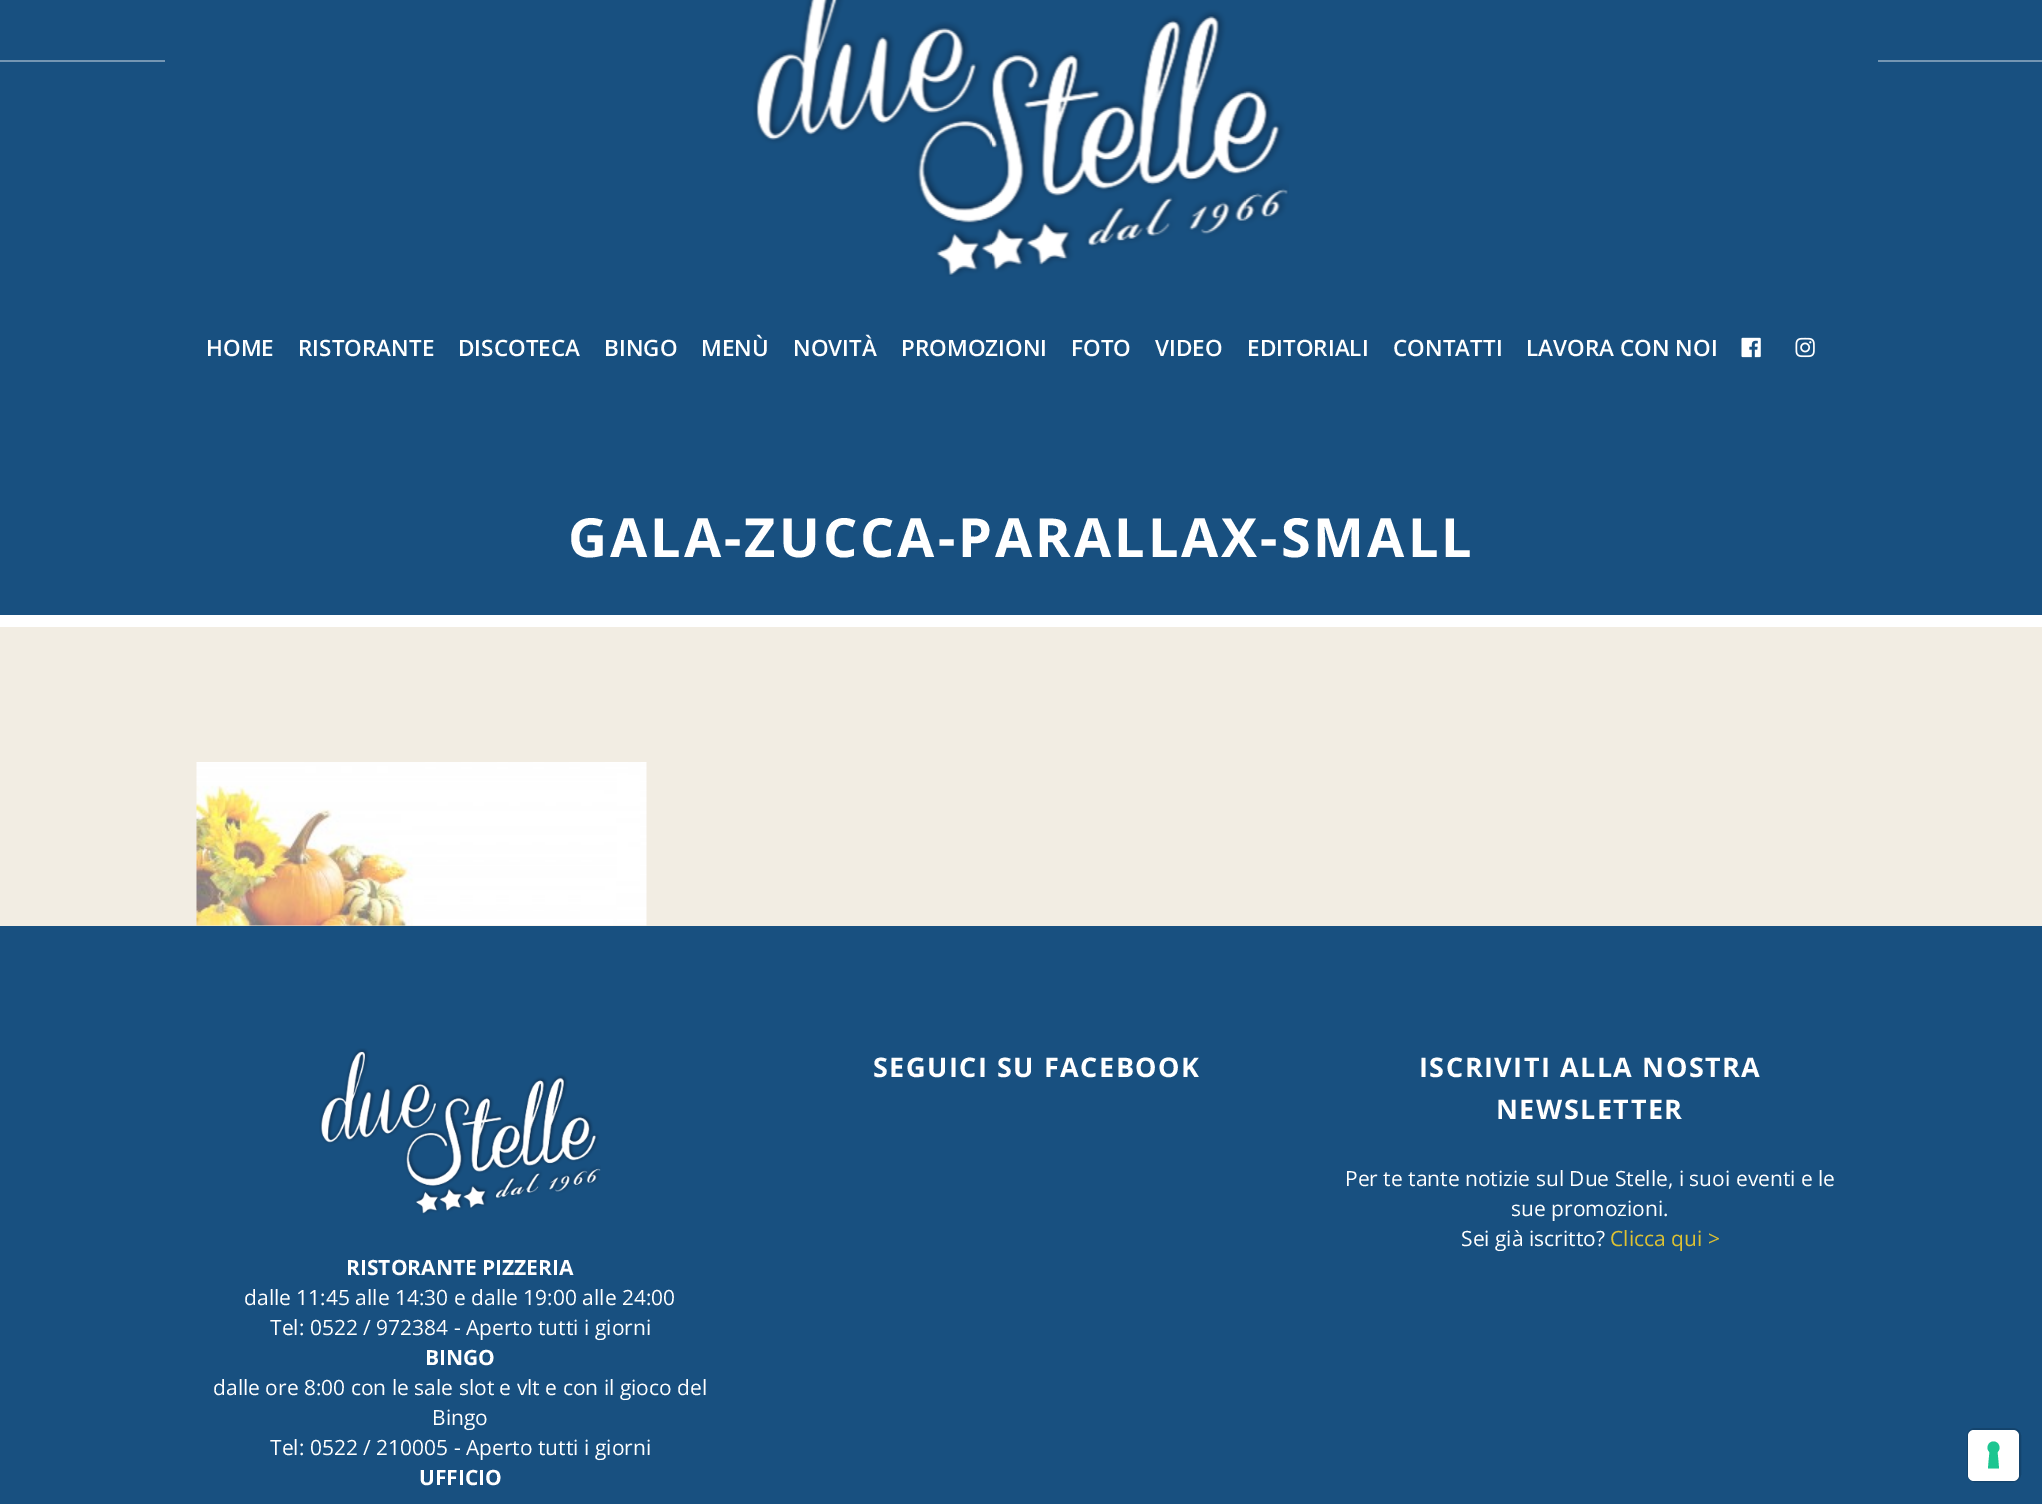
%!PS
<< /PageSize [2042 1504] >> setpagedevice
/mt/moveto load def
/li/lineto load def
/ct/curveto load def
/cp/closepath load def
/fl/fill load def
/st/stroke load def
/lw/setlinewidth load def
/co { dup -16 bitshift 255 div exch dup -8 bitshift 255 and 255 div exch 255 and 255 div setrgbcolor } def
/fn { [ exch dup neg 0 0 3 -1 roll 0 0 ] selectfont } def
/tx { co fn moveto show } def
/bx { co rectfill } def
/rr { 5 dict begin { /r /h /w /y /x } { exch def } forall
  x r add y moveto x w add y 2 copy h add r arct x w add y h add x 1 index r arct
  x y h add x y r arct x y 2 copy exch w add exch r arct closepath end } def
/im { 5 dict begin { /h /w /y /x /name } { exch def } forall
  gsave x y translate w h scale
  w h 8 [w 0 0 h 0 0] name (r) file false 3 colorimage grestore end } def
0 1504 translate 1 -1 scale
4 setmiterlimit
0 0 2042 1504 16#F2EDE3 bx
0 0 2042 615 16#185080 bx
0 60 165 2 16#7496B3 bx
(media/1.raw) 753 0 536 277 im
1878 60 164 2 16#7496B3 bx
(media/2.raw) 1741 337 20 21 im
(media/3.raw) 1795 337 20 21 im
0 615 2042 12 16#FFFFFF bx
(media/4.raw) 196 762 451 164 im
0 926 2042 578 16#185080 bx
(media/5.raw) 319 1048 282 167 im
16#14446D co
2 lw
1968 1429 52 52 7 rr st
16#FFFFFF co
1968 1430 51 51 6 rr fl
16#1CC691 co
1993.5 1441.5 mt 1999 1441.5 2001.5 1448.5 1997.5 1452 ct 1999 1468.5 li 1988 1468.5 li 1989.5 1452 li 1985.5 1448.5 1988 1441.5 1993.5 1441.5 ct cp eofill
(HOME) 206 356 /OpenSans-SemiBold 22.5 16#FFFFFF tx
(RISTORANTE) 298 356 /OpenSans-SemiBold 22.5 16#FFFFFF tx
(DISCOTECA) 458 356 /OpenSans-SemiBold 22.5 16#FFFFFF tx
(BINGO) 604 356 /OpenSans-SemiBold 22.5 16#FFFFFF tx
(MENÙ) 701 356 /OpenSans-SemiBold 22.5 16#FFFFFF tx
(NOVITÀ) 793 356 /OpenSans-SemiBold 22.5 16#FFFFFF tx
(PROMOZIONI) 901 356 /OpenSans-SemiBold 22.5 16#FFFFFF tx
(FOTO) 1071 356 /OpenSans-SemiBold 22.5 16#FFFFFF tx
(VIDEO) 1155 356 /OpenSans-SemiBold 22.5 16#FFFFFF tx
(EDITORIALI) 1247 356 /OpenSans-SemiBold 22.5 16#FFFFFF tx
(CONTATTI) 1393 356 /OpenSans-SemiBold 22.5 16#FFFFFF tx
(LAVORA CON NOI) 1526 356 /OpenSans-SemiBold 22.5 16#FFFFFF tx
/OpenSans-Bold 54 fn
568 557 mt 3 0 (GALA-ZUCCA-PARALLAX-SMALL) ashow
/OpenSans-Bold 27 fn
873 1077 mt 1.5 0 (SEGUICI SU FACEBOOK) ashow
1419 1077 mt 1.5 0 (ISCRIVITI ALLA NOSTRA) ashow
1496 1119 mt 1.5 0 (NEWSLETTER) ashow
(Per te tante notizie sul Due Stelle, i suoi eventi e le) 1345 1186 /OpenSans-Regular 21 16#FFFFFF tx
(sue promozioni.) 1511 1216 /OpenSans-Regular 21 16#FFFFFF tx
(Sei già iscritto?) 1461 1246 /OpenSans-Regular 21 16#FFFFFF tx
(Clicca qui >) 1610 1246 /OpenSans-Regular 21 16#DDC133 tx
(RISTORANTE PIZZERIA) 346 1275 /OpenSans-Bold 21 16#FFFFFF tx
(dalle 11:45 alle 14:30 e dalle 19:00 alle 24:00) 244 1305 /OpenSans-Regular 21 16#FFFFFF tx
(Tel: 0522 / 972384 - Aperto tutti i giorni) 270 1335 /OpenSans-Regular 21 16#FFFFFF tx
(BINGO) 425 1365 /OpenSans-Bold 21 16#FFFFFF tx
(dalle ore 8:00 con le sale slot e vlt e con il gioco del) 213 1395 /OpenSans-Regular 21 16#FFFFFF tx
(Bingo) 432 1425 /OpenSans-Regular 21 16#FFFFFF tx
(Tel: 0522 / 210005 - Aperto tutti i giorni) 270 1455 /OpenSans-Regular 21 16#FFFFFF tx
(UFFICIO) 419 1485 /OpenSans-Bold 21 16#FFFFFF tx
showpage
